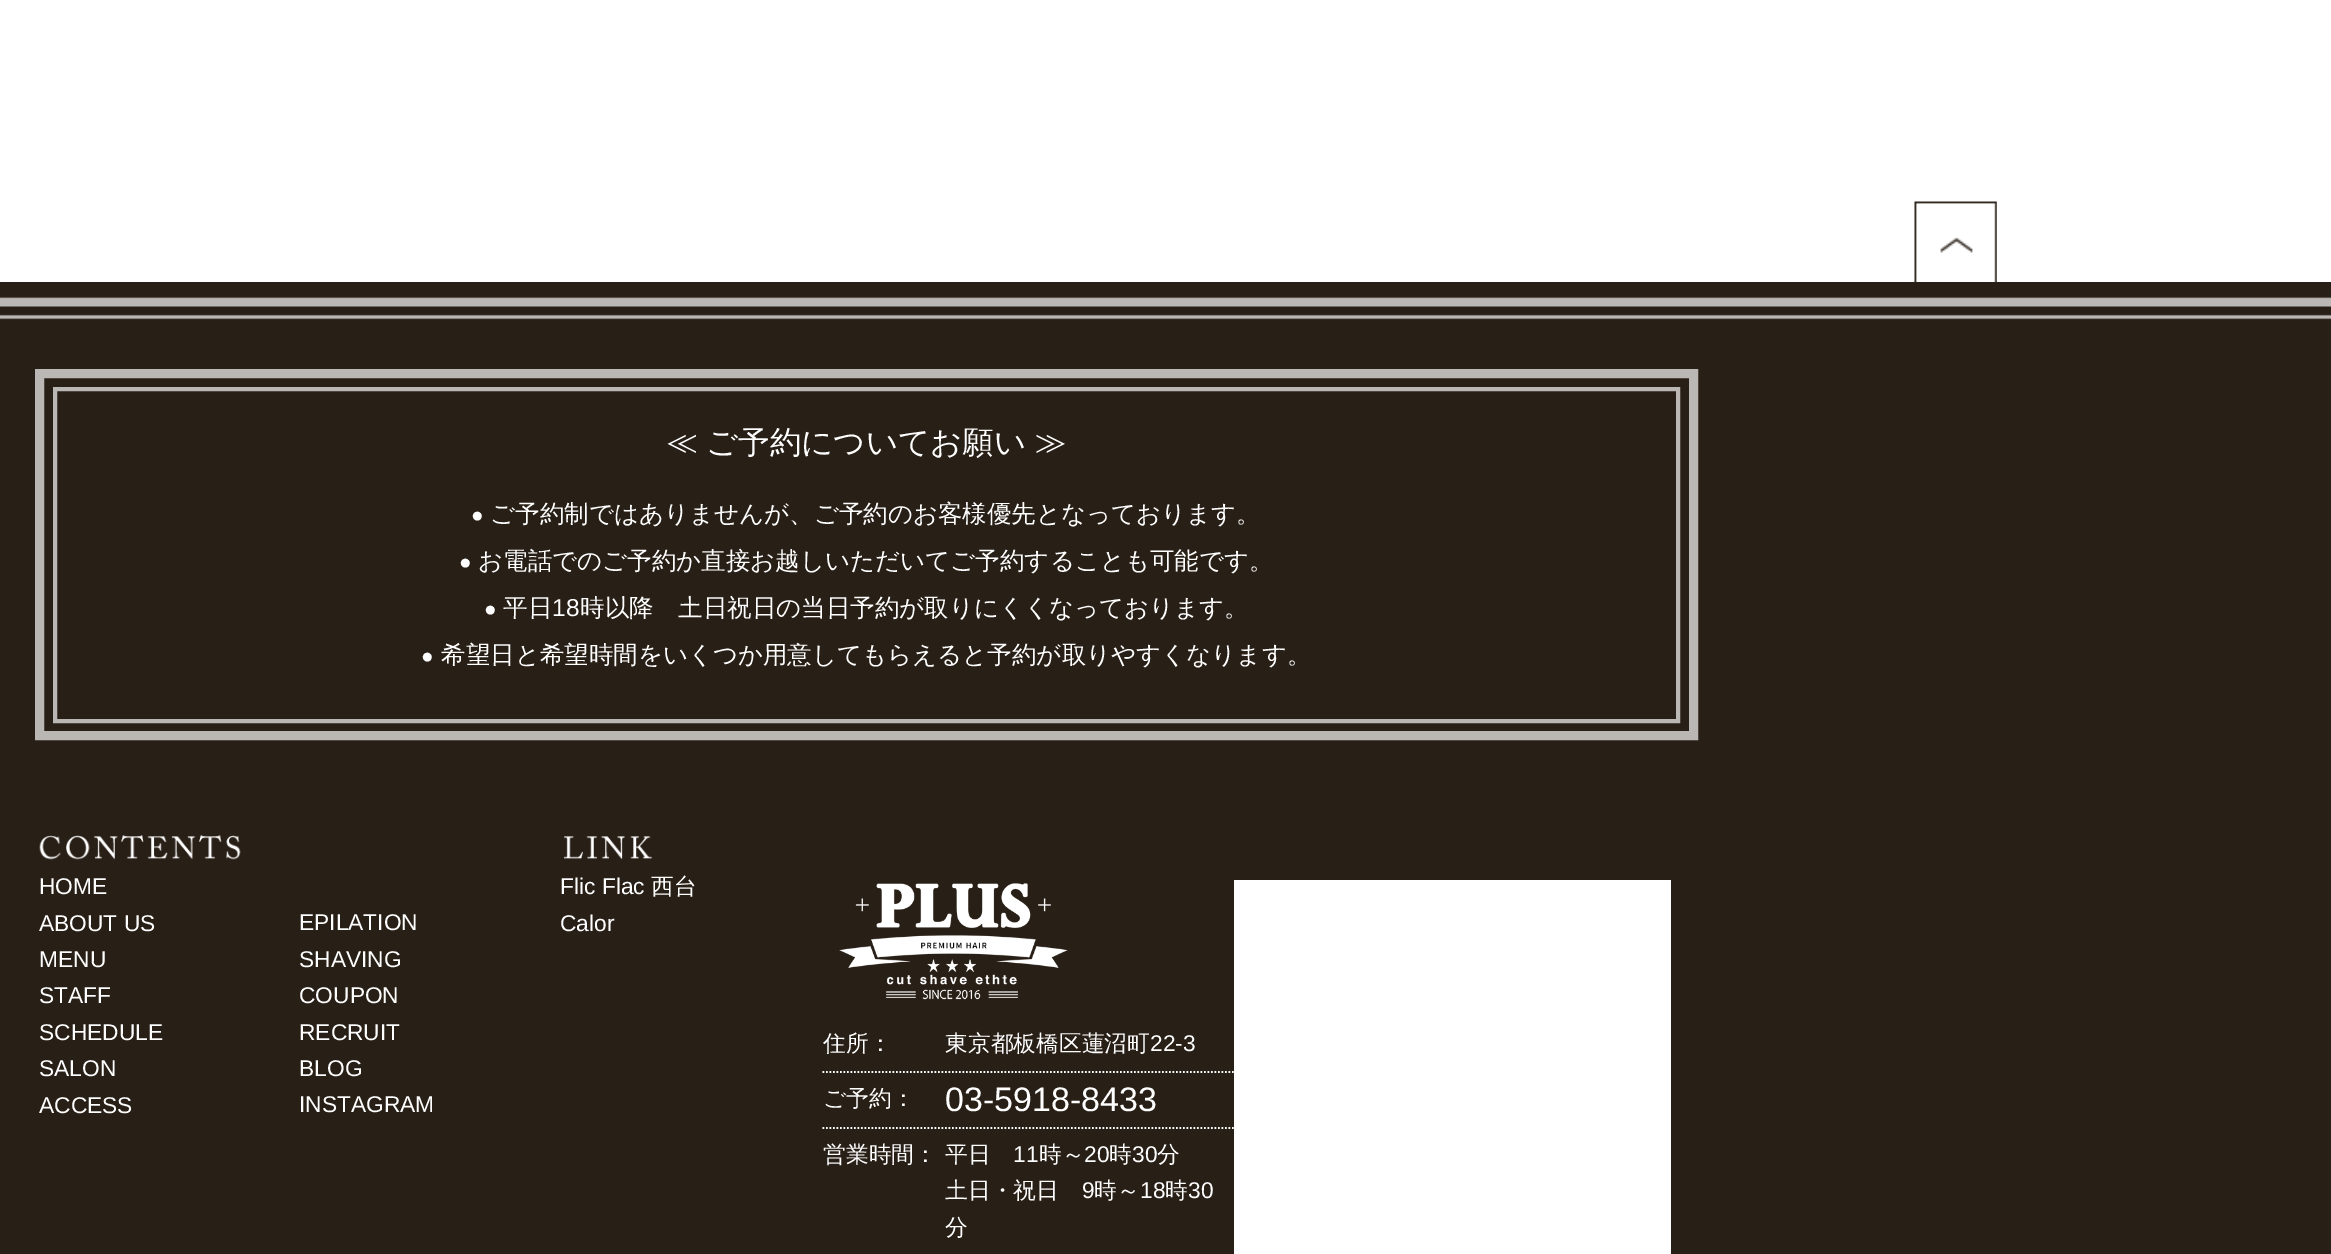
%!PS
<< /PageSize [2331 1254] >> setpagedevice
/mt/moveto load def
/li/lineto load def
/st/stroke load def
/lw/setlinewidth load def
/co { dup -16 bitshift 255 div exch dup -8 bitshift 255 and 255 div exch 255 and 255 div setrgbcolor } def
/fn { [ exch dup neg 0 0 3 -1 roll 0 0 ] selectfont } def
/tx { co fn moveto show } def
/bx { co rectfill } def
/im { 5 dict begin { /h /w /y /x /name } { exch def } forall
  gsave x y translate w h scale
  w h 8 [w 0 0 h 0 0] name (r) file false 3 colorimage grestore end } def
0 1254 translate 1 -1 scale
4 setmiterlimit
0 0 2331 1254 16#FFFFFF bx
(media/1.raw) 1914 201 83 81 im
0 282 2331 972 16#281F16 bx
(media/2.raw) 0 297 2331 23 im
16#BAB7B4 co
9 lw
39.5 373.5 1654 362 rectstroke
4 lw
55 389 1623 332 rectstroke
(media/3.raw) 39 835 202 25 im
(media/4.raw) 564 836 89 24 im
(media/5.raw) 839 883 229 117 im
1234 880 437 374 16#FFFFFF bx
1.8 lw
[1.75 1.75] 0 setdash
822.5 1072 mt 945 1072 li st
945 1072 mt 1234 1072 li st
822.5 1128 mt 945 1128 li st
945 1128 mt 1234 1128 li st
/WenQuanYiZenHei-Medium 31.5 fn
666 453 mt -1 0 32 (≪ ご予約についてお願い ≫) widthshow
(●) 471 522 /LiberationSans-Regular 21 16#FFFFFF tx
(ご予約制ではありませんが、ご予約のお客様優先となっております。) 490 522 /WenQuanYiZenHei-Medium 24.5 16#FFFFFF tx
(●) 459 569 /LiberationSans-Regular 21 16#FFFFFF tx
(お電話でのご予約か直接お越しいただいてご予約することも可能です。) 478 569 /WenQuanYiZenHei-Medium 24.5 16#FFFFFF tx
(●) 484 616 /LiberationSans-Regular 21 16#FFFFFF tx
(平日) 503 616 /WenQuanYiZenHei-Medium 24.5 16#FFFFFF tx
(18) 552 616 /LiberationSans-Regular 24.5 16#FFFFFF tx
(時以降　土日祝日の当日予約が取りにくくなっております。) 580 616 /WenQuanYiZenHei-Medium 24.5 16#FFFFFF tx
(●) 421 663 /LiberationSans-Regular 21 16#FFFFFF tx
(希望日と希望時間をいくつか用意してもらえると予約が取りやすくなります。) 441 663 /WenQuanYiZenHei-Medium 24.5 16#FFFFFF tx
(HOME) 39 894 /LiberationSans-Regular 22.75 16#FFFFFF tx
(ABOUT US) 39 931 /LiberationSans-Regular 22.75 16#FFFFFF tx
(MENU) 39 967 /LiberationSans-Regular 22.75 16#FFFFFF tx
(STAFF) 39 1003 /LiberationSans-Regular 22.75 16#FFFFFF tx
(SCHEDULE) 39 1040 /LiberationSans-Regular 22.75 16#FFFFFF tx
(SALON) 39 1076 /LiberationSans-Regular 22.75 16#FFFFFF tx
(ACCESS) 39 1113 /LiberationSans-Regular 22.75 16#FFFFFF tx
(EPILATION) 299 930 /LiberationSans-Regular 22.75 16#FFFFFF tx
(SHAVING) 299 967 /LiberationSans-Regular 22.75 16#FFFFFF tx
(COUPON) 299 1003 /LiberationSans-Regular 22.75 16#FFFFFF tx
(RECRUIT) 299 1040 /LiberationSans-Regular 22.75 16#FFFFFF tx
(BLOG) 299 1076 /LiberationSans-Regular 22.75 16#FFFFFF tx
(INSTAGRAM) 299 1112 /LiberationSans-Regular 22.75 16#FFFFFF tx
(Flic Flac) 560 894 /LiberationSans-Regular 22.75 16#FFFFFF tx
(西台) 651 894 /WenQuanYiZenHei-Medium 22.75 16#FFFFFF tx
(Calor) 560 931 /LiberationSans-Regular 22.75 16#FFFFFF tx
(住所：) 823 1051 /WenQuanYiZenHei-Medium 22.75 16#FFFFFF tx
(東京都板橋区蓮沼町) 945 1051 /WenQuanYiZenHei-Medium 22.75 16#FFFFFF tx
(22-3) 1150 1051 /LiberationSans-Regular 22.75 16#FFFFFF tx
(ご予約：) 823 1106 /WenQuanYiZenHei-Medium 22.75 16#FFFFFF tx
(03-5918-8433) 945 1111 /LiberationSans-Regular 34 16#FFFFFF tx
(営業時間：) 823 1162 /WenQuanYiZenHei-Medium 22.75 16#FFFFFF tx
(平日) 945 1162 /WenQuanYiZenHei-Medium 22.75 16#FFFFFF tx
(11) 1013 1162 /LiberationSans-Regular 22.75 16#FFFFFF tx
(時～) 1039 1162 /WenQuanYiZenHei-Medium 22.75 16#FFFFFF tx
(20) 1084 1162 /LiberationSans-Regular 22.75 16#FFFFFF tx
(時) 1109 1162 /WenQuanYiZenHei-Medium 22.75 16#FFFFFF tx
(30) 1132 1162 /LiberationSans-Regular 22.75 16#FFFFFF tx
(分) 1157 1162 /WenQuanYiZenHei-Medium 22.75 16#FFFFFF tx
(土日・祝日) 945 1198 /WenQuanYiZenHei-Medium 22.75 16#FFFFFF tx
(9) 1082 1198 /LiberationSans-Regular 22.75 16#FFFFFF tx
(時～) 1094 1198 /WenQuanYiZenHei-Medium 22.75 16#FFFFFF tx
(18) 1140 1198 /LiberationSans-Regular 22.75 16#FFFFFF tx
(時) 1165 1198 /WenQuanYiZenHei-Medium 22.75 16#FFFFFF tx
(30) 1188 1198 /LiberationSans-Regular 22.75 16#FFFFFF tx
(分) 945 1235 /WenQuanYiZenHei-Medium 22.75 16#FFFFFF tx
showpage
